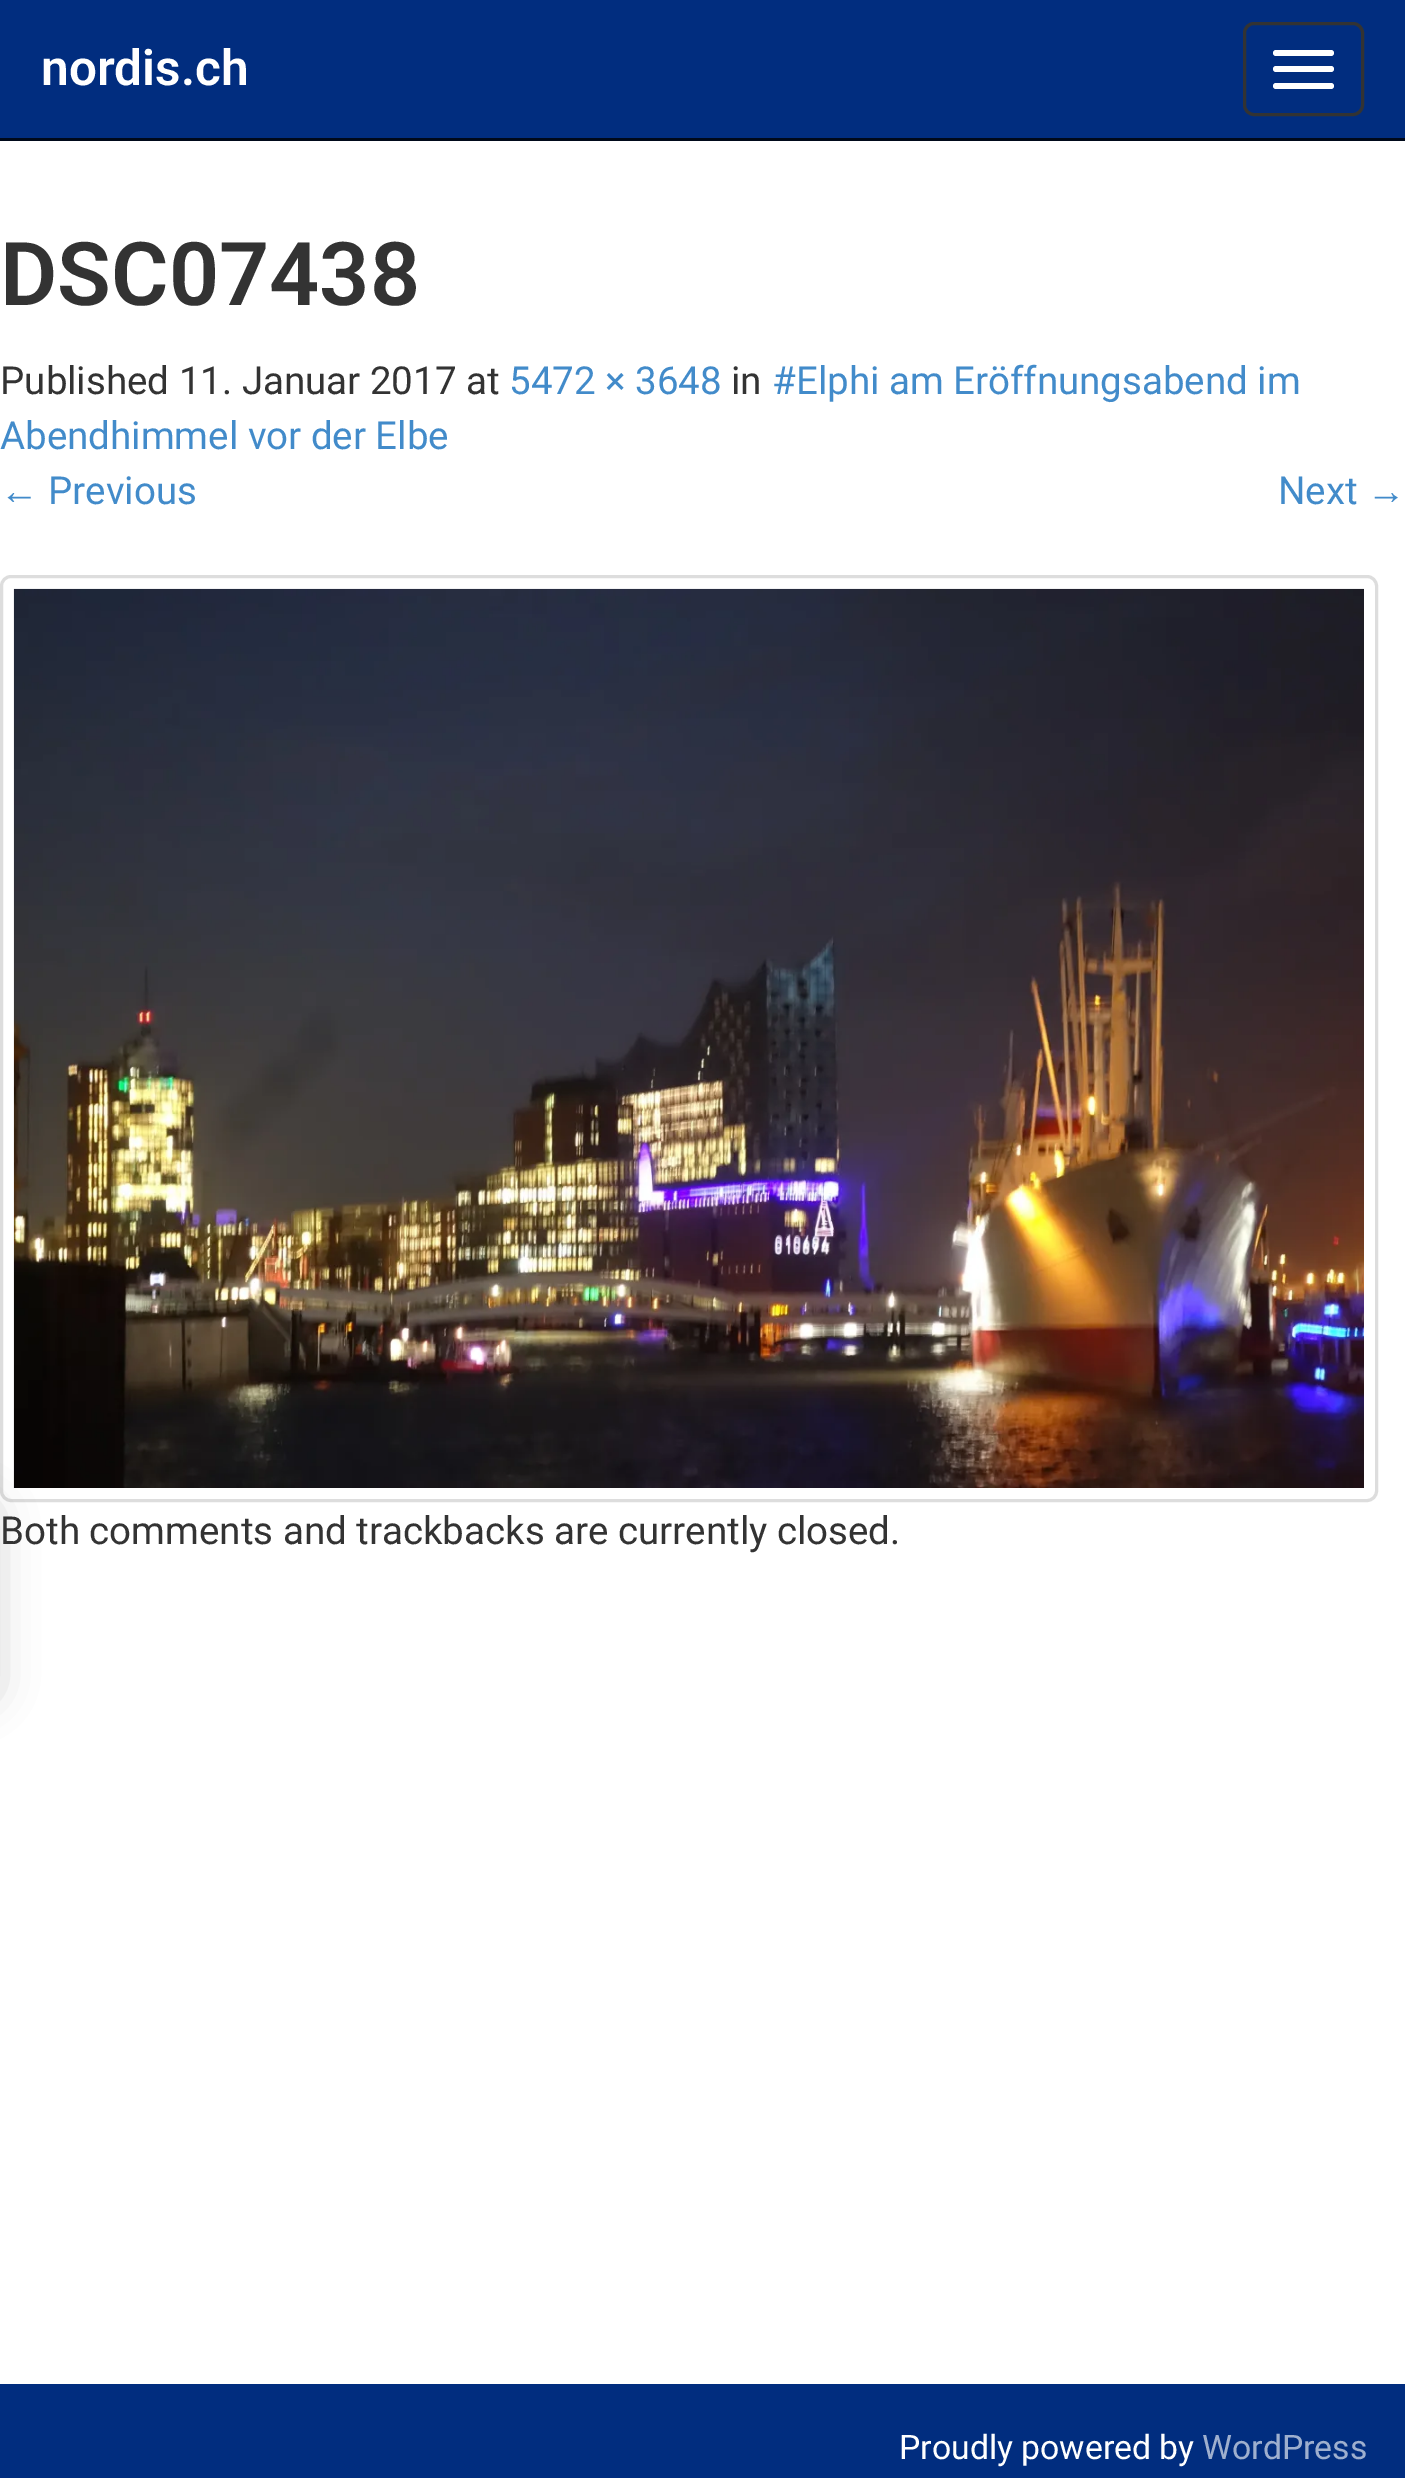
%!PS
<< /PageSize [1405 2478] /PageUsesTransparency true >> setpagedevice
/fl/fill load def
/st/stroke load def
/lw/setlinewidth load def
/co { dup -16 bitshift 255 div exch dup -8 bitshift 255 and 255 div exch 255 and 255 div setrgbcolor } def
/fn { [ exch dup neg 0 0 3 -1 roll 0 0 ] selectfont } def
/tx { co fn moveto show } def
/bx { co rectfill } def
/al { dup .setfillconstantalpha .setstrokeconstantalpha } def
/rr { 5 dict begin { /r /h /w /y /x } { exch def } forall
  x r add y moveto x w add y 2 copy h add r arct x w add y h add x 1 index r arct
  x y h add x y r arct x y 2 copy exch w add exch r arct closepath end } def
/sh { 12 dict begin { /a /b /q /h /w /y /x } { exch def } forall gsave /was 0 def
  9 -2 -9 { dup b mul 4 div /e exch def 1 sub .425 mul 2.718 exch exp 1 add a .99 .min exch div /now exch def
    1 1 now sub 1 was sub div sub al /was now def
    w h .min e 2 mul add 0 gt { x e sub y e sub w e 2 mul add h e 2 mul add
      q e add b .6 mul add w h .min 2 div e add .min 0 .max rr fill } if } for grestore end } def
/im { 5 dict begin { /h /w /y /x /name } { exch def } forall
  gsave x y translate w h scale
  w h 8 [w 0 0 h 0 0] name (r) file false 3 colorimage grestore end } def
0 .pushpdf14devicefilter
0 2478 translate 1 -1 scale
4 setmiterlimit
0 0 1405 2478 16#FFFFFF bx
0 0 1405 138 16#012D7F bx
0 138 1405 3 16#00091A bx
16#333333 co
3 lw
1244.5 23.5 118 91 9.5 rr st
16#FFFFFF co
1273 50 61 6 3 rr fl
1273 66 61 6 3 rr fl
1273 83 61 6 3 rr fl
16#DDDDDD co
1.5 576.5 1375 924 9.5 rr st
(media/1.raw) 13 588 1351 900 im
16#000000 co
-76 1502 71 198 14 20.5 .2 sh
0 2384 1405 94 16#012D7F bx
(nordis.ch) 41 85 /Roboto-SemiBold 49.5 16#FFFFFF tx
(DSC07438) 0 305 /Roboto-SemiBold 88 16#333333 tx
(Published 11. Januar 2017 at) 0 394 /Roboto-Regular 38.5 16#333333 tx
(5472 × 3648) 509 394 /Roboto-Regular 38.5 16#428BCA tx
(in) 731 394 /Roboto-Regular 38.5 16#333333 tx
(#Elphi am Eröffnungsabend im) 772 394 /Roboto-Regular 38.5 16#428BCA tx
(Abendhimmel vor der Elbe) 0 449 /Roboto-Regular 38.5 16#428BCA tx
(←) 0 504 /LiberationSans-Regular 38.5 16#428BCA tx
(Previous) 48 504 /Roboto-Regular 38.5 16#428BCA tx
(Next) 1278 504 /Roboto-Regular 38.5 16#428BCA tx
(→) 1367 504 /LiberationSans-Regular 38.5 16#428BCA tx
(Both comments and trackbacks are currently closed.) 0 1544 /Roboto-Regular 38.5 16#333333 tx
(Proudly powered by) 899 2459 /Roboto-Regular 33.75 16#FFFFFF tx
(WordPress) 1202 2459 /Roboto-Regular 33.75 16#9EAFCE tx
.poppdf14devicefilter showpage
